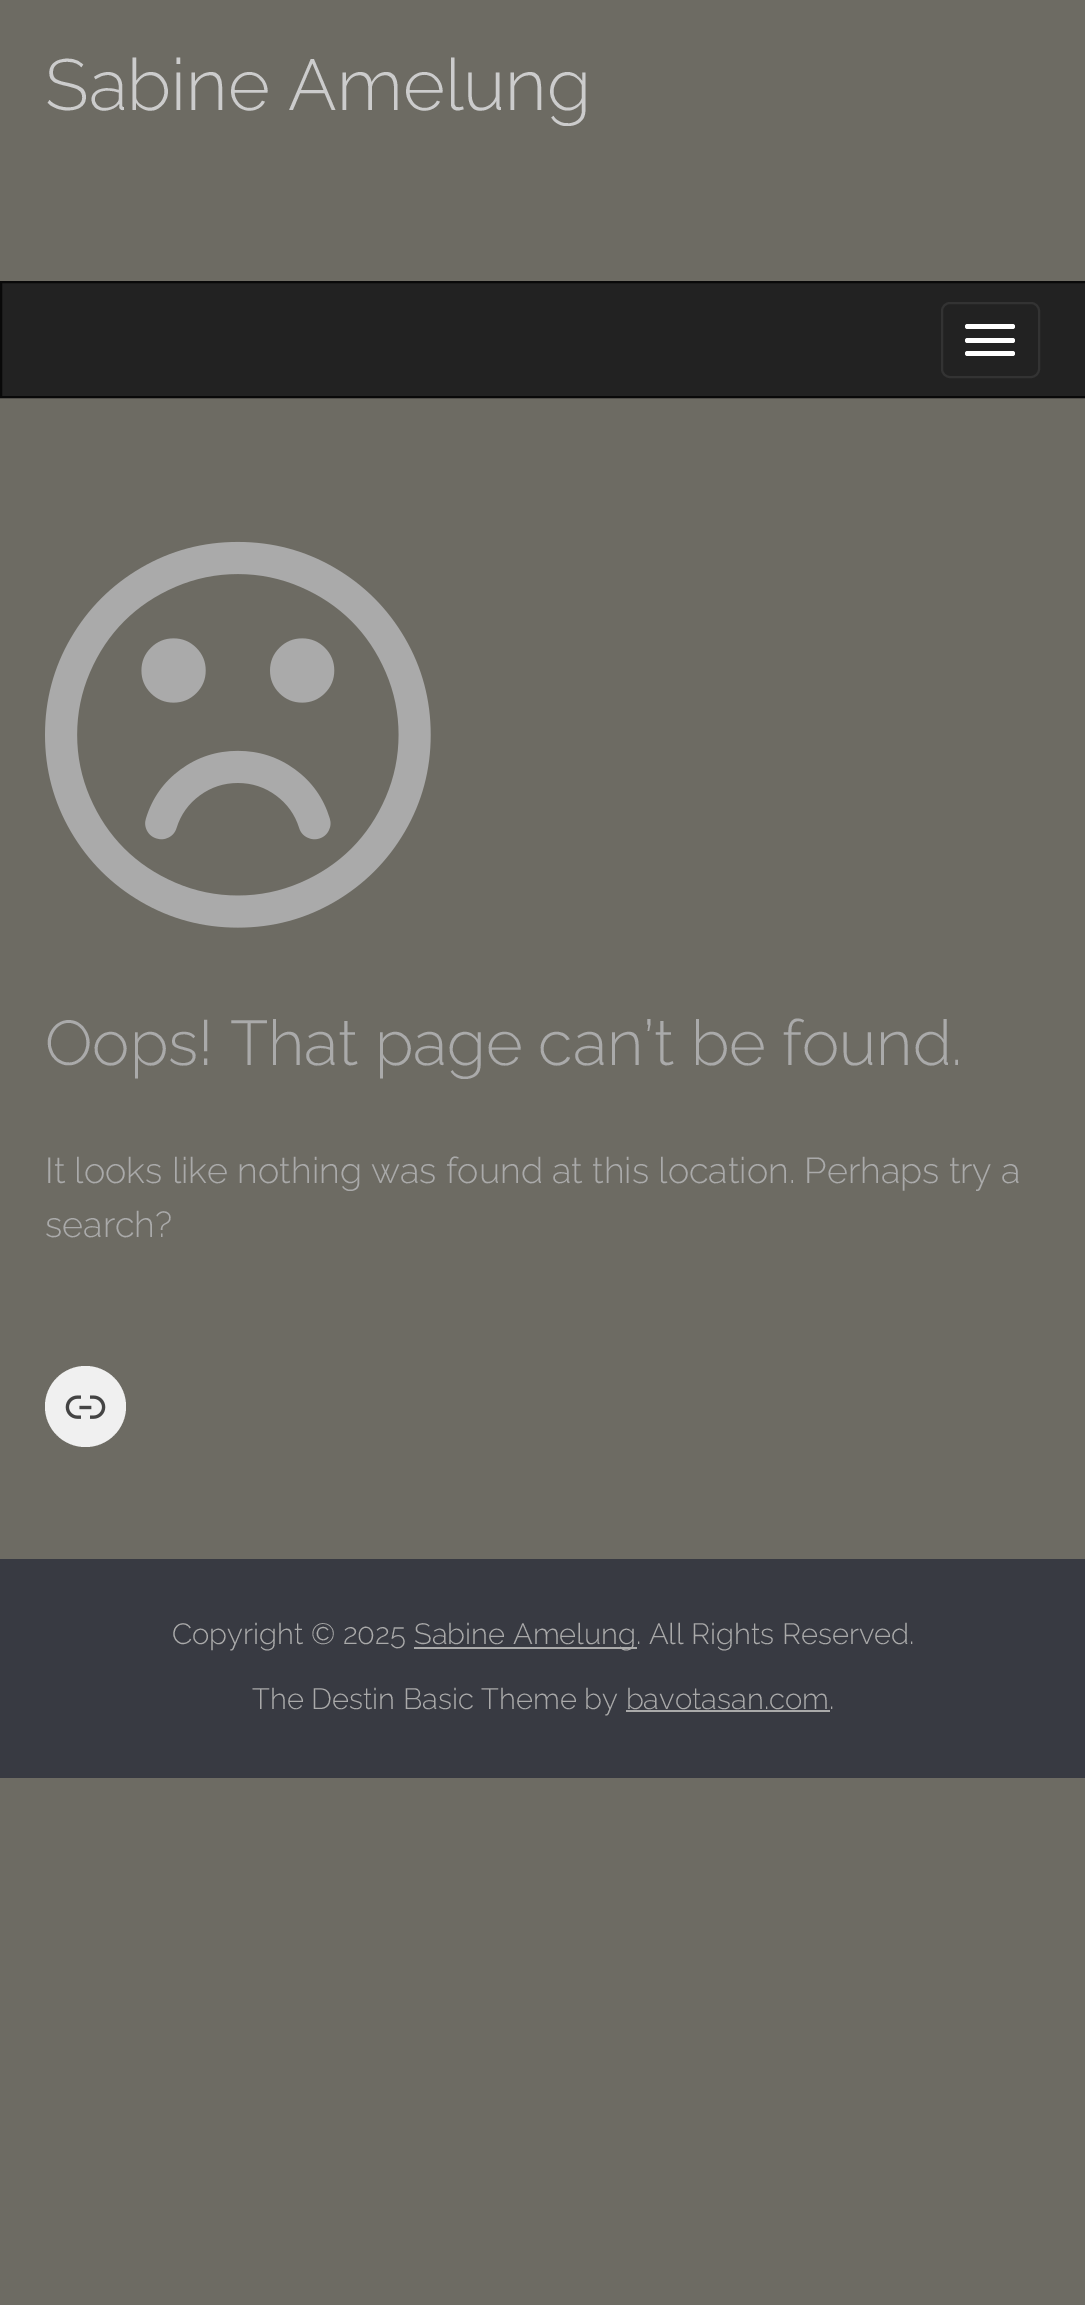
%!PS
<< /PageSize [1085 2305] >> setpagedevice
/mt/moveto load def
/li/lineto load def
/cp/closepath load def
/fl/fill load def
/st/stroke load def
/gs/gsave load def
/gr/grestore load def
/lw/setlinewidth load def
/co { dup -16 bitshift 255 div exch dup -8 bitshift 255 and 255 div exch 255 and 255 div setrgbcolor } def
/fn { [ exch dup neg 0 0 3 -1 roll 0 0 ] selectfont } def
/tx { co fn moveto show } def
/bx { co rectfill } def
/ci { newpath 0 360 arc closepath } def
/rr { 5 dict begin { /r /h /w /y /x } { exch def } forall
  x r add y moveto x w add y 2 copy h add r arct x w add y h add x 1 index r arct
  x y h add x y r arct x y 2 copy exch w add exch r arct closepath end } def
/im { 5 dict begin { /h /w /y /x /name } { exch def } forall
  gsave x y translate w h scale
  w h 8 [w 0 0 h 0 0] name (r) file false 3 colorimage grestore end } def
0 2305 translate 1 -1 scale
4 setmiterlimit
0 0 1085 2305 16#6D6B63 bx
16#222222 co
1 282 mt 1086 282 li 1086 397 li 1 397 li cp gs fl gr
16#090909 co
2 lw
st
16#333333 co
942 303 97 74 8 rr st
16#FFFFFF co
965 324 50 5 2.5 rr fl
965 338 50 5 2.5 rr fl
965 351 50 5 2.5 rr fl
(media/1.raw) 45 541 386 387 im
16#F0F0F0 co
85.5 1406.5 40.5 ci fl
(media/2.raw) 65 1395 41 24 im
0 1559 1085 219 16#383A42 bx
414 1647 223 2 16#AAAAAA bx
626 1710 204 2 16#AAAAAA bx
(Sabine Amelung) 45 110 /Raleway-Light 72 16#CCCCCC tx
(Oops! That page can’t be found.) 45 1065 /Raleway-Light 63 16#AAAAAA tx
(It looks like nothing was found at this location. Perhaps try a) 45 1183 /Raleway-Light 36 16#AAAAAA tx
(search?) 45 1237 /Raleway-Light 36 16#AAAAAA tx
(Copyright © 2025) 172 1644 /Raleway-Light 29.25 16#AAAAAA tx
(Sabine Amelung. All Rights Reserved.) 414 1644 /Raleway-Light 29.25 16#AAAAAA tx
(The Destin Basic Theme by bavotasan.com.) 252 1709 /Raleway-Light 29.25 16#AAAAAA tx
showpage
